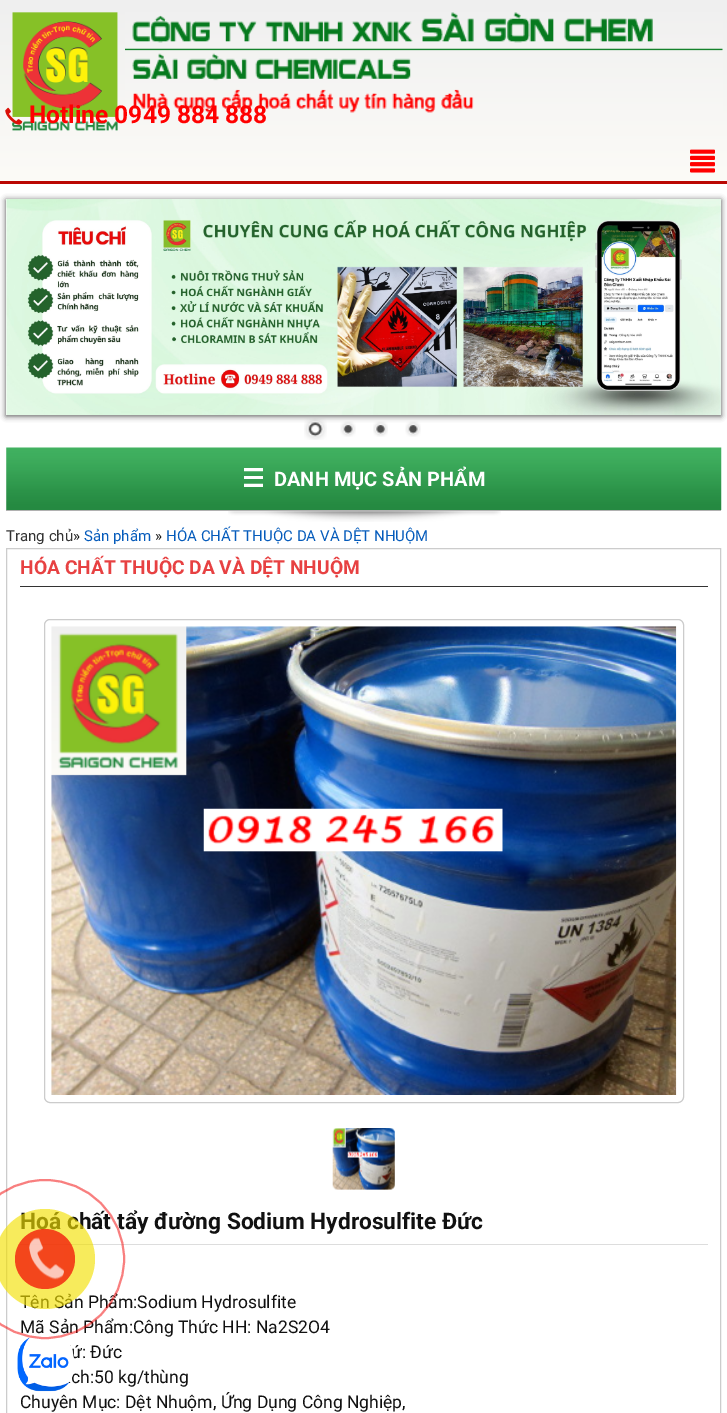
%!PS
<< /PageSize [727 1413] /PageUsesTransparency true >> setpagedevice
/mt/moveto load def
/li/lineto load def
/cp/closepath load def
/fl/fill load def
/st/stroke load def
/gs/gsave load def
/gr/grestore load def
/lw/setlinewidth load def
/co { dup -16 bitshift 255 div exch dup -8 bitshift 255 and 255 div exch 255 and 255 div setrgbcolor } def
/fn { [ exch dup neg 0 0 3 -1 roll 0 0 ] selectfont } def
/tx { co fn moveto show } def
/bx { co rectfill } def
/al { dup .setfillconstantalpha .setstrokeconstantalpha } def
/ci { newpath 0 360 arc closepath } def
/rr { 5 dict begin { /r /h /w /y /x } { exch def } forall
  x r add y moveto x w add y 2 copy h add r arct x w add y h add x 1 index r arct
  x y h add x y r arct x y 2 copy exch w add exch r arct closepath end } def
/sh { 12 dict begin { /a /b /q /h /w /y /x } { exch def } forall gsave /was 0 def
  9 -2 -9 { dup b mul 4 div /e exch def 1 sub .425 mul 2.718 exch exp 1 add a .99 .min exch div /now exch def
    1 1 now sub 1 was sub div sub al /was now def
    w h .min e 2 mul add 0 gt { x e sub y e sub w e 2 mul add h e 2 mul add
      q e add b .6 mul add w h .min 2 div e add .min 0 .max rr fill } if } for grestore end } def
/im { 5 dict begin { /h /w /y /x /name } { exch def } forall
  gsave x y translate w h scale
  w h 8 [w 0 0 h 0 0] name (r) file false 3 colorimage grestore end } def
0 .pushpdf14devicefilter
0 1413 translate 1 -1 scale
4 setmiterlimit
0 0 727 1413 16#FFFFFF bx
gs 0 0 mt 727 0 li 727 181 li 0 181 li cp clip newpath
<< /ShadingType 2 /ColorSpace /DeviceRGB /Coords [364 0 364 181] /Extend [true true] /Function << /FunctionType 2 /Domain [0 1] /C0 [.937 .937 .937] /C1 [.988 .984 .969] /N 1 >> >> shfill gr
0 181 727 3 16#BA0703 bx
(media/1.raw) 12 12 106 119 im
(media/2.raw) 125 12 598 101 im
(media/3.raw) 5 107 18 18 im
(media/4.raw) 690 149 25 24 im
(media/6.raw) 304 418 23 22 im
(media/7.raw) 340 421 16 16 im
(media/8.raw) 373 421 15 16 im
(media/9.raw) 405 421 16 16 im
16#4A4A4A co
6 200 715 216 0 3 1 sh
6 199 1 216 16#FFFFFF bx
(media/5.raw) 6 199 715 216 im
(media/10.raw) 228 511 273 11 im
(media/11.raw) 6 447 716 63 im
6 510 715 1 16#B1B1B1 bx
16#CCCCCC co
6.5 548.5 714 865 rectstroke
20 586 688 1 16#333333 bx
16#CCCCCC co
44.5 619.5 639 483 5.5 rr st
(media/12.raw) 51 626 626 469 im
(media/13.raw) 332 1128 63 62 im
20 1244 688 1 16#DDDDDD bx
(Hotline 0949 884 888) 29 123 /Roboto-Bold 24.5 16#FF0000 tx
(☰) 242 487 /DejaVuSans-Bold 25 16#FFFFFF tx
(DANH MỤC SẢN PHẨM) 274 486 /Roboto-Bold 20 16#FFFFFF tx
(Trang chủ) 6 541 /Roboto-Regular 15 16#333333 tx
(») 73 541 /Roboto-Regular 15 16#111111 tx
(Sản phẩm) 84 541 /Roboto-Regular 15 16#055BBB tx
(») 155 541 /Roboto-Regular 15 16#111111 tx
(HÓA CHẤT THUỘC DA VÀ DỆT NHUỘM) 166 541 /Roboto-Regular 15 16#055BBB tx
(HÓA CHẤT THUỘC DA VÀ DỆT NHUỘM) 20 574 /Roboto-Bold 19.25 16#E74142 tx
(Hoá chất tẩy đường Sodium Hydrosulfite Đức) 20 1229 /Roboto-Bold 22.75 16#111111 tx
(Tên Sản Phẩm:Sodium Hydrosulfite) 20 1308 /Roboto-Regular 17.5 16#111111 tx
(Mã Sản Phẩm:Công Thức HH: Na2S2O4) 20 1333 /Roboto-Regular 17.5 16#111111 tx
(ứ: Đức) 71 1358 /Roboto-Regular 17.5 16#111111 tx
(ch:50 kg/thùng) 71 1383 /Roboto-Regular 17.5 16#111111 tx
(Chuyên Mục: Dệt Nhuộm, Ứng Dụng Công Nghiệp,) 20 1408 /Roboto-Regular 17.5 16#111111 tx
(media/15.raw) 17 1337 57 55 im
0.5 al
16#F20000 co
2 lw
45 1259 79 ci st
0.64 al
16#F2DF00 co
45 1259 50 ci fl
0.7 al
16#F20000 co
45 1259 30 ci fl
1 al
(media/14.raw) 29 1237 35 43 im
.poppdf14devicefilter showpage
